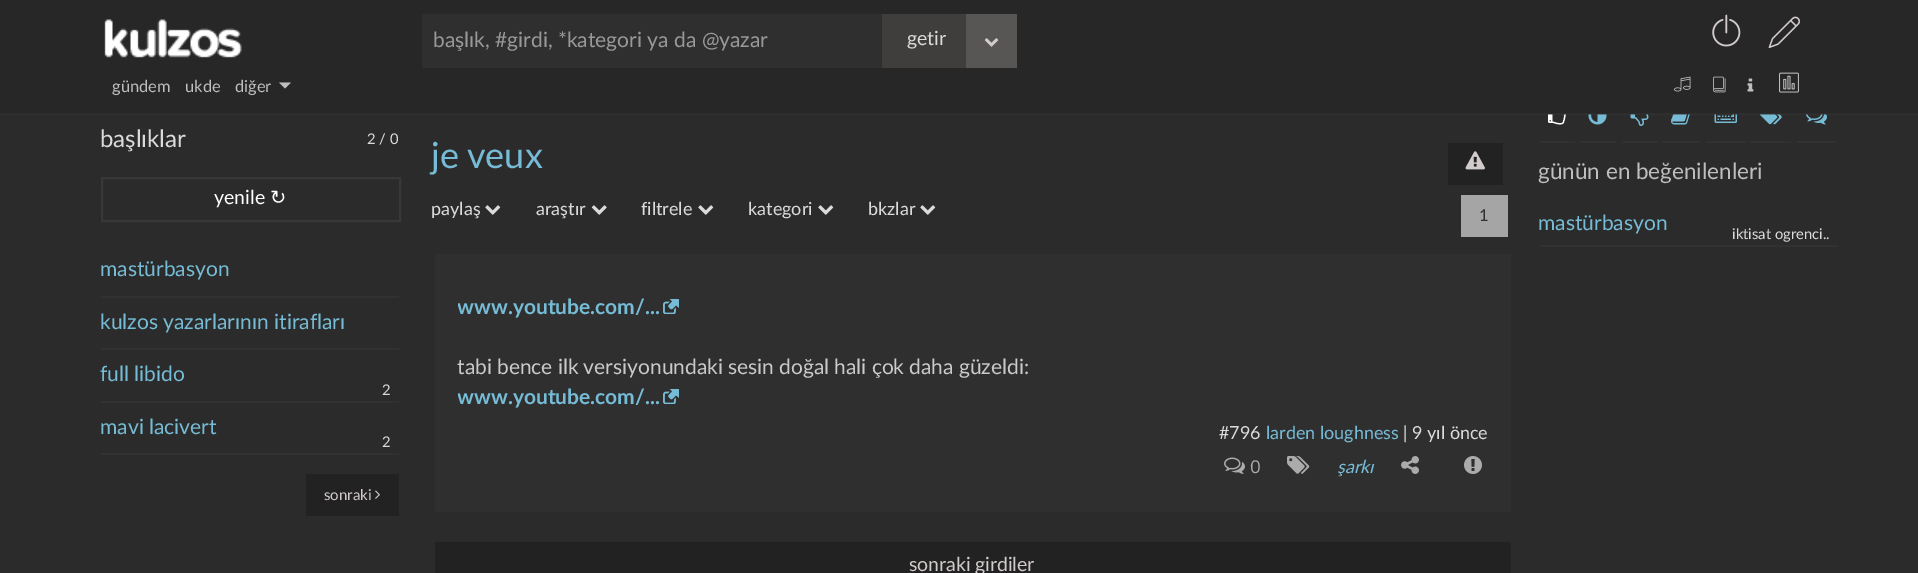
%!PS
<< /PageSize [1918 573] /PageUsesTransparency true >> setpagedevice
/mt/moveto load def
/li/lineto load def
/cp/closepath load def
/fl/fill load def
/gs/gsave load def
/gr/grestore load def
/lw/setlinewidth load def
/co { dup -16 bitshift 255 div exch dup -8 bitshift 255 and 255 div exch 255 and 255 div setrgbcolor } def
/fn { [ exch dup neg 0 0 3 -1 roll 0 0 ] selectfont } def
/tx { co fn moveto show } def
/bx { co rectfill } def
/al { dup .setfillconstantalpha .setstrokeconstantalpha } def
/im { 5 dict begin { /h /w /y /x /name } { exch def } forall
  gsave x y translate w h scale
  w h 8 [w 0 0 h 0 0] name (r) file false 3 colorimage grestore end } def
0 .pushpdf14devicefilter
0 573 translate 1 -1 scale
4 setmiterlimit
0 0 1918 573 16#2B2B2B bx
0 0 1918 114 16#272727 bx
(media/18.raw) 1548 114 18 11 im
(media/19.raw) 1588 114 19 11 im
(media/20.raw) 1630 114 19 12 im
(media/21.raw) 1671 114 19 11 im
(media/22.raw) 1714 114 23 9 im
(media/23.raw) 1759 114 23 11 im
(media/24.raw) 1806 114 21 11 im
0.46 al
0 113 1918 2 16#353535 bx
1 al
(media/1.raw) 104 19 138 39 im
422 14 460 54 16#2F2F2F bx
882 14 84 54 16#403D3D bx
966 14 51 54 16#585555 bx
(media/2.raw) 984 38 15 9 im
(media/3.raw) 1712 14 29 33 im
(media/4.raw) 1768 16 33 33 im
16#BEBEBE co
279 82.5 mt 291 82.5 li 285 88.5 li cp fl
(media/5.raw) 1674 76 17 16 im
(media/6.raw) 1713 76 13 17 im
(media/7.raw) 1747 78 7 14 im
(media/8.raw) 1779 72 20 21 im
16#383838 co
2 lw
102 178 298 43 rectstroke
101 296 298 2 16#313131 bx
101 348 298 2 16#313131 bx
101 401 298 2 16#313131 bx
101 453 298 2 16#313131 bx
306 474 93 42 16#232222 bx
(media/9.raw) 375 490 5 9 im
1448 143 55 42 16#232222 bx
(media/10.raw) 1465 151 20 19 im
(media/11.raw) 485 205 16 10 im
(media/12.raw) 591 205 16 10 im
(media/11.raw) 698 205 16 10 im
(media/11.raw) 818 205 16 10 im
(media/11.raw) 920 205 16 10 im
1461 195 47 42 16#A5A5A5 bx
435 254 1076 258 16#2F2F2F bx
(media/13.raw) 663 299 16 15 im
(media/13.raw) 663 389 16 15 im
(media/14.raw) 1224 457 21 17 im
(media/15.raw) 1287 456 23 18 im
(media/16.raw) 1401 456 18 18 im
(media/17.raw) 1464 456 18 18 im
435 542 1076 31 16#232222 bx
1539 141 36 2 16#313131 bx
1580 141 36 2 16#313131 bx
1622 141 36 2 16#313131 bx
1662 141 38 2 16#313131 bx
1706 141 40 2 16#313131 bx
1751 141 40 2 16#313131 bx
1797 141 39 2 16#313131 bx
1539 245 299 2 16#313131 bx
(başlık, #girdi, *kategori ya da @yazar) 433 47 /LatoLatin-Regular 21 16#999999 tx
(getir) 907 45 /LatoLatin-Regular 19.5 16#DBDBDB tx
(gündem) 112 92 /LatoLatin-Regular 16.5 16#BFBDBD tx
(ukde) 185 92 /LatoLatin-Regular 16.5 16#BFBDBD tx
(diğer) 235 92 /LatoLatin-Regular 16.5 16#BFBDBD tx
(başlıklar) 100 147 /LatoLatin-Regular 24 16#DBDBDB tx
(2 / 0) 367 144 /LatoLatin-Regular 14.75 16#DBDBDB tx
(yenile) 214 204 /LatoLatin-Regular 19.5 16#FFFFFF tx
(↻) 270 204 /DejaVuSans-Regular 19.5 16#FFFFFF tx
(mastürbasyon) 100 276 /LatoLatin-Regular 21 16#76BCD6 tx
(kulzos yazarlarının itirafları) 100 329 /LatoLatin-Regular 21 16#76BCD6 tx
(full libido) 100 381 /LatoLatin-Regular 21 16#76BCD6 tx
(2) 382 395 /LatoLatin-Regular 14.75 16#DBDBDB tx
(mavi lacivert) 100 434 /LatoLatin-Regular 21 16#76BCD6 tx
(2) 382 447 /LatoLatin-Regular 14.75 16#DBDBDB tx
(sonraki) 324 500 /LatoLatin-Regular 15 16#D2CBCB tx
/LatoLatin-Regular 36 fn
16#76BCD6 co
431 168 mt -1 0 32 (je veux) widthshow
(paylaş) 431 215 /LatoLatin-Regular 18 16#DBDBDB tx
(araştır) 536 215 /LatoLatin-Regular 18 16#DBDBDB tx
(filtrele) 641 215 /LatoLatin-Regular 18 16#DBDBDB tx
(kategori) 748 215 /LatoLatin-Regular 18 16#DBDBDB tx
(bkzlar) 868 215 /LatoLatin-Regular 18 16#DBDBDB tx
(1) 1479 221 /LatoLatin-Regular 16.5 16#303030 tx
gs
458 233 1030 180 rectclip
(www.youtube.com/...) 457 314 /LatoLatin-Bold 21 16#76BCD6 tx
gr
/LatoLatin-Regular 21 fn
16#CACACA co
457 374 mt -.25 0 32 (tabi bence ilk versiyonundaki sesin doğal hali çok daha güzeldi:) widthshow
gs
458 233 1030 180 rectclip
(www.youtube.com/...) 457 404 /LatoLatin-Bold 21 16#76BCD6 tx
gr
(#796) 1219 439 /LatoLatin-Regular 18 16#DBDBDB tx
(larden loughness) 1266 439 /LatoLatin-Regular 18 16#76BCD6 tx
(|) 1403 439 /LatoLatin-Regular 18 16#DBDBDB tx
(9 yıl önce) 1412 439 /LatoLatin-Regular 18 16#DBDBDB tx
(0) 1250 473 /Nunito-Regular 18 16#ABABAB tx
(şarkı) 1337 473 /LatoLatin-Italic 18 16#76BCD6 tx
/LatoLatin-Regular 19.5 fn
16#D2CBCB co
909 571 mt -1 0 32 (sonraki girdiler) widthshow
(günün en beğenilenleri) 1538 179 /LatoLatin-Regular 22.5 16#BFBDBD tx
(mastürbasyon) 1538 230 /LatoLatin-Regular 21 16#76BCD6 tx
(iktisat ogrenci..) 1732 239 /LatoLatin-Regular 14.75 16#DBDBDB tx
.poppdf14devicefilter showpage
